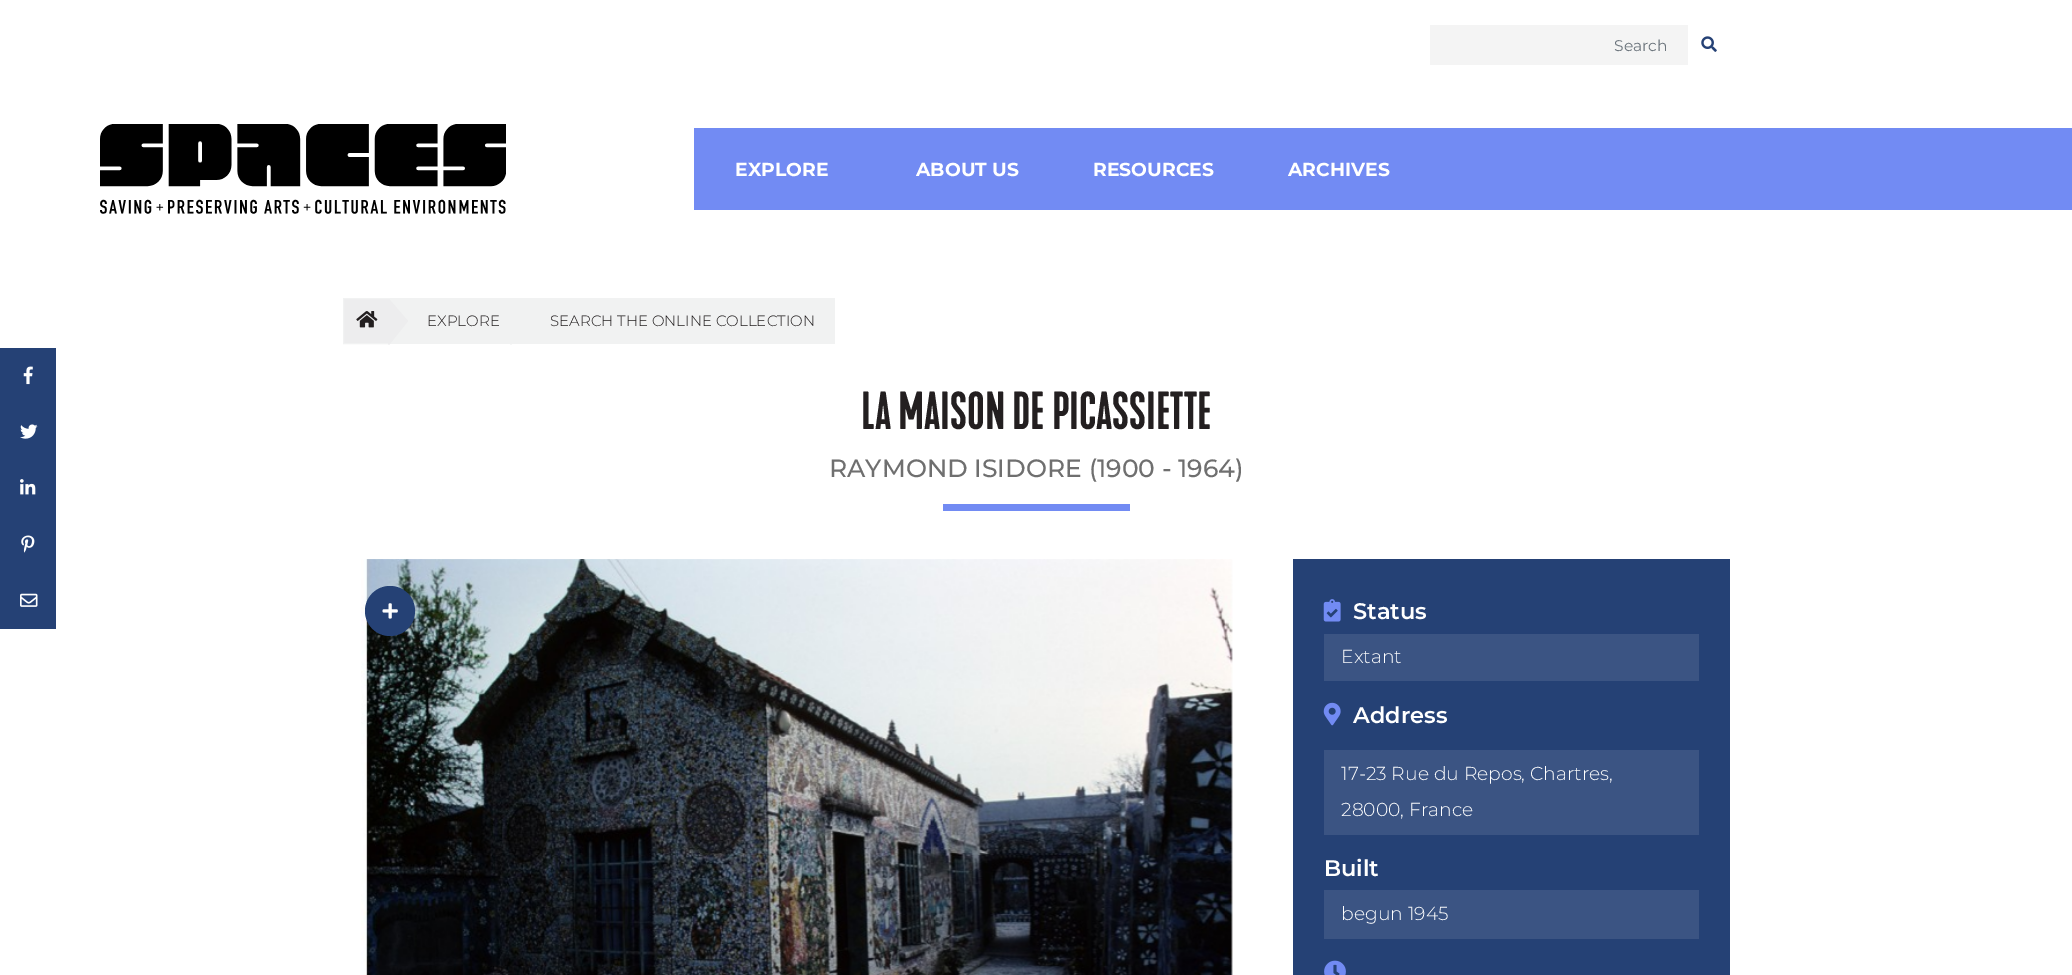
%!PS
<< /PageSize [2072 975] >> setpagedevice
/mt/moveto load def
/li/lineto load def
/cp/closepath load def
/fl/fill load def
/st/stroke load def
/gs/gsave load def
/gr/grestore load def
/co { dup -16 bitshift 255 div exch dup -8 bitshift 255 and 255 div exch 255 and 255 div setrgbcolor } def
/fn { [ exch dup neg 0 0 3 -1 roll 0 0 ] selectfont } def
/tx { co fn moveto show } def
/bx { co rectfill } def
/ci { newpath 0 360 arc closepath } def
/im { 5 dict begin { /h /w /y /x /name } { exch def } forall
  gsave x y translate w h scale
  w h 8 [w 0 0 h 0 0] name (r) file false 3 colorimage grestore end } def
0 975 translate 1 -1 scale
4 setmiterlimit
0 0 2072 975 16#FFFFFF bx
1430 25 258 40 16#F4F4F4 bx
(media/1.raw) 1701 36 16 16 im
(media/2.raw) 100 124 406 90 im
694 128 1378 82 16#728BF3 bx
16#EDEDEE co
343.5 298.5 mt 388.5 298.5 li 388.5 343.5 li 343.5 343.5 li cp gs fl gr
16#F1F2F2 co
st
389 298 446 46 16#F1F2F2 bx
16#EDEDEE co
389 345 mt 389 299 li 408 321 li cp fl
388 345 mt 388 299 li 406 321 li cp fl
(media/3.raw) 356 311 22 17 im
16#F1F2F2 co
511 345 mt 511 299 li 530 321 li cp fl
510 345 mt 510 299 li 529 321 li cp fl
943 504 187 7 16#728BF3 bx
(media/4.raw) 361 559 872 416 im
16#254175 co
390 611 25 ci fl
(media/5.raw) 382 603 16 16 im
0 348 56 281 16#254175 bx
(media/6.raw) 23 366 10 19 im
(media/7.raw) 20 424 18 15 im
(media/8.raw) 20 479 16 16 im
(media/9.raw) 21 535 14 18 im
(media/10.raw) 20 593 18 14 im
1293 559 437 416 16#254175 bx
(media/11.raw) 1323 599 18 23 im
1324 634 375 47 16#3B5483 bx
(media/12.raw) 1323 702 18 24 im
1324 750 375 85 16#3B5483 bx
1324 890 375 49 16#3B5483 bx
(media/13.raw) 1324 960 22 15 im
(Search) 1614 51 /Montserrat-Regular 15.5 16#6C757D tx
(EXPLORE) 735 176 /Montserrat-Bold 18.75 16#FFFFFF tx
(ABOUT US) 916 176 /Montserrat-Bold 18.75 16#FFFFFF tx
(RESOURCES) 1093 176 /Montserrat-Bold 18.75 16#FFFFFF tx
(ARCHIVES) 1288 176 /Montserrat-Bold 18.75 16#FFFFFF tx
(EXPLORE) 427 326 /Montserrat-Light 15 16#231F20 tx
(SEARCH THE ONLINE COLLECTION) 550 326 /Montserrat-Light 15 16#231F20 tx
(LA MAISON DE PICASSIETTE) 861 429 /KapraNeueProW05-Medium 50 16#231F20 tx
(RAYMOND ISIDORE \(1900 - 1964\)) 829 477 /Montserrat-Medium 25 16#6F6F6F tx
(Status) 1353 619 /Montserrat-SemiBold 22.5 16#FFFFFF tx
(Extant) 1341 663 /Montserrat-Light 18.75 16#FFFFFF tx
(Address) 1353 723 /Montserrat-SemiBold 22.5 16#FFFFFF tx
(17-23 Rue du Repos, Chartres,) 1341 780 /Montserrat-Light 18.75 16#FFFFFF tx
(28000, France) 1341 816 /Montserrat-Light 18.75 16#FFFFFF tx
(Built) 1324 876 /Montserrat-SemiBold 22.5 16#FFFFFF tx
(begun 1945) 1341 920 /Montserrat-Light 18.75 16#FFFFFF tx
showpage
